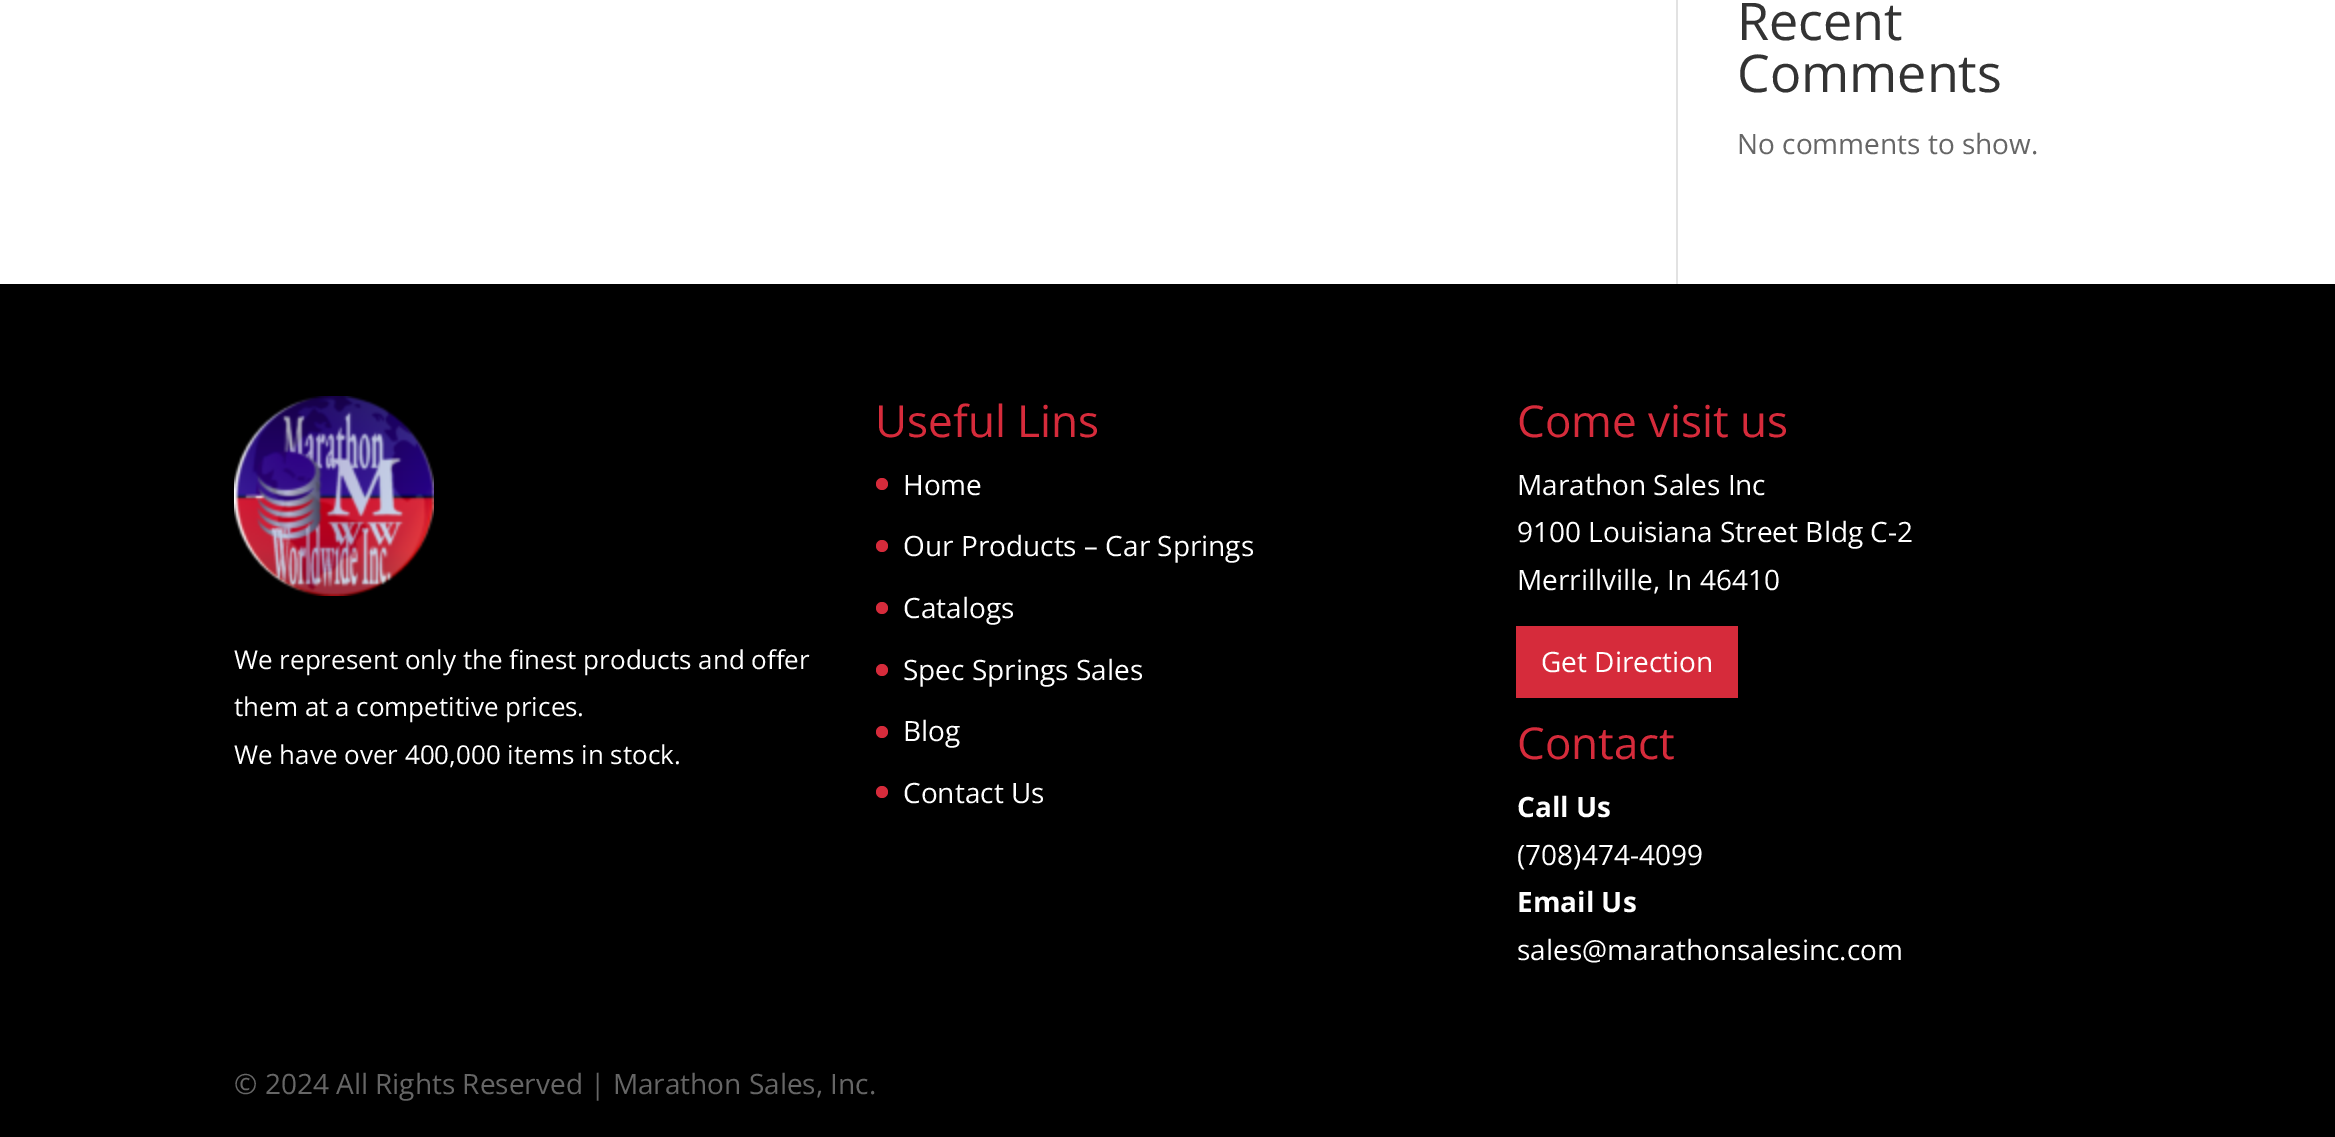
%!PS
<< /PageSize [2335 1137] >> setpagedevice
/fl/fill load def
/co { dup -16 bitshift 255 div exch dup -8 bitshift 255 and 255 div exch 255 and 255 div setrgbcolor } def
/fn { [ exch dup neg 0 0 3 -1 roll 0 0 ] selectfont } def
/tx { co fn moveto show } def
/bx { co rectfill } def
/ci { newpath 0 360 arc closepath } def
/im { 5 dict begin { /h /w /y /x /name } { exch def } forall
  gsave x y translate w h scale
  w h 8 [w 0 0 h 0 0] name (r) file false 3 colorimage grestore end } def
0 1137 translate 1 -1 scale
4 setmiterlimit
0 0 2335 1137 16#FFFFFF bx
1676 0 2 284 16#E2E2E2 bx
0 284 2335 853 16#000000 bx
(media/1.raw) 234 396 200 200 im
16#D62B3B co
882 484 6 ci fl
882 546 6 ci fl
882 608 6 ci fl
882 670 6 ci fl
882 732 6 ci fl
882 792 6 ci fl
1516 626 222 72 16#D62B3B bx
(Recent) 1737 40 /OpenSans-Regular 52 16#333333 tx
(Comments) 1737 92 /OpenSans-Regular 52 16#333333 tx
(No comments to show.) 1737 154 /OpenSans-Regular 28 16#666666 tx
(We represent only the finest products and offer) 234 669 /OpenSans-Regular 26 16#FFFFFF tx
(them at a competitive prices.) 234 716 /OpenSans-Regular 26 16#FFFFFF tx
(We have over 400,000 items in stock.) 234 764 /OpenSans-Regular 26 16#FFFFFF tx
(Useful Lins) 875 437 /OpenSans-Regular 44 16#D62B3B tx
(Home) 903 495 /OpenSans-Regular 28 16#FFFFFF tx
(Our Products – Car Springs) 903 556 /OpenSans-Regular 28 16#FFFFFF tx
(Catalogs) 903 618 /OpenSans-Regular 28 16#FFFFFF tx
(Spec Springs Sales) 903 680 /OpenSans-Regular 28 16#FFFFFF tx
(Blog) 903 741 /OpenSans-Regular 28 16#FFFFFF tx
(Contact Us) 903 803 /OpenSans-Regular 28 16#FFFFFF tx
(Come visit us) 1517 437 /OpenSans-Regular 44 16#D62B3B tx
(Marathon Sales Inc) 1517 495 /OpenSans-Regular 28 16#FFFFFF tx
(9100 Louisiana Street Bldg C-2) 1517 542 /OpenSans-Regular 28 16#FFFFFF tx
(Merrillville, In 46410) 1517 590 /OpenSans-Regular 28 16#FFFFFF tx
(Get Direction) 1541 672 /OpenSans-Regular 28 16#FFFFFF tx
(Contact) 1517 759 /OpenSans-Regular 44 16#D62B3B tx
(Call Us) 1517 817 /OpenSans-Bold 28 16#FFFFFF tx
(\(708\)474-4099) 1517 865 /OpenSans-Regular 28 16#FFFFFF tx
(Email Us) 1517 912 /OpenSans-Bold 28 16#FFFFFF tx
(sales@marathonsalesinc.com) 1517 960 /OpenSans-Regular 28 16#FFFFFF tx
(© 2024 All Rights Reserved | Marathon Sales, Inc.) 234 1094 /OpenSans-Regular 28 16#666666 tx
showpage
